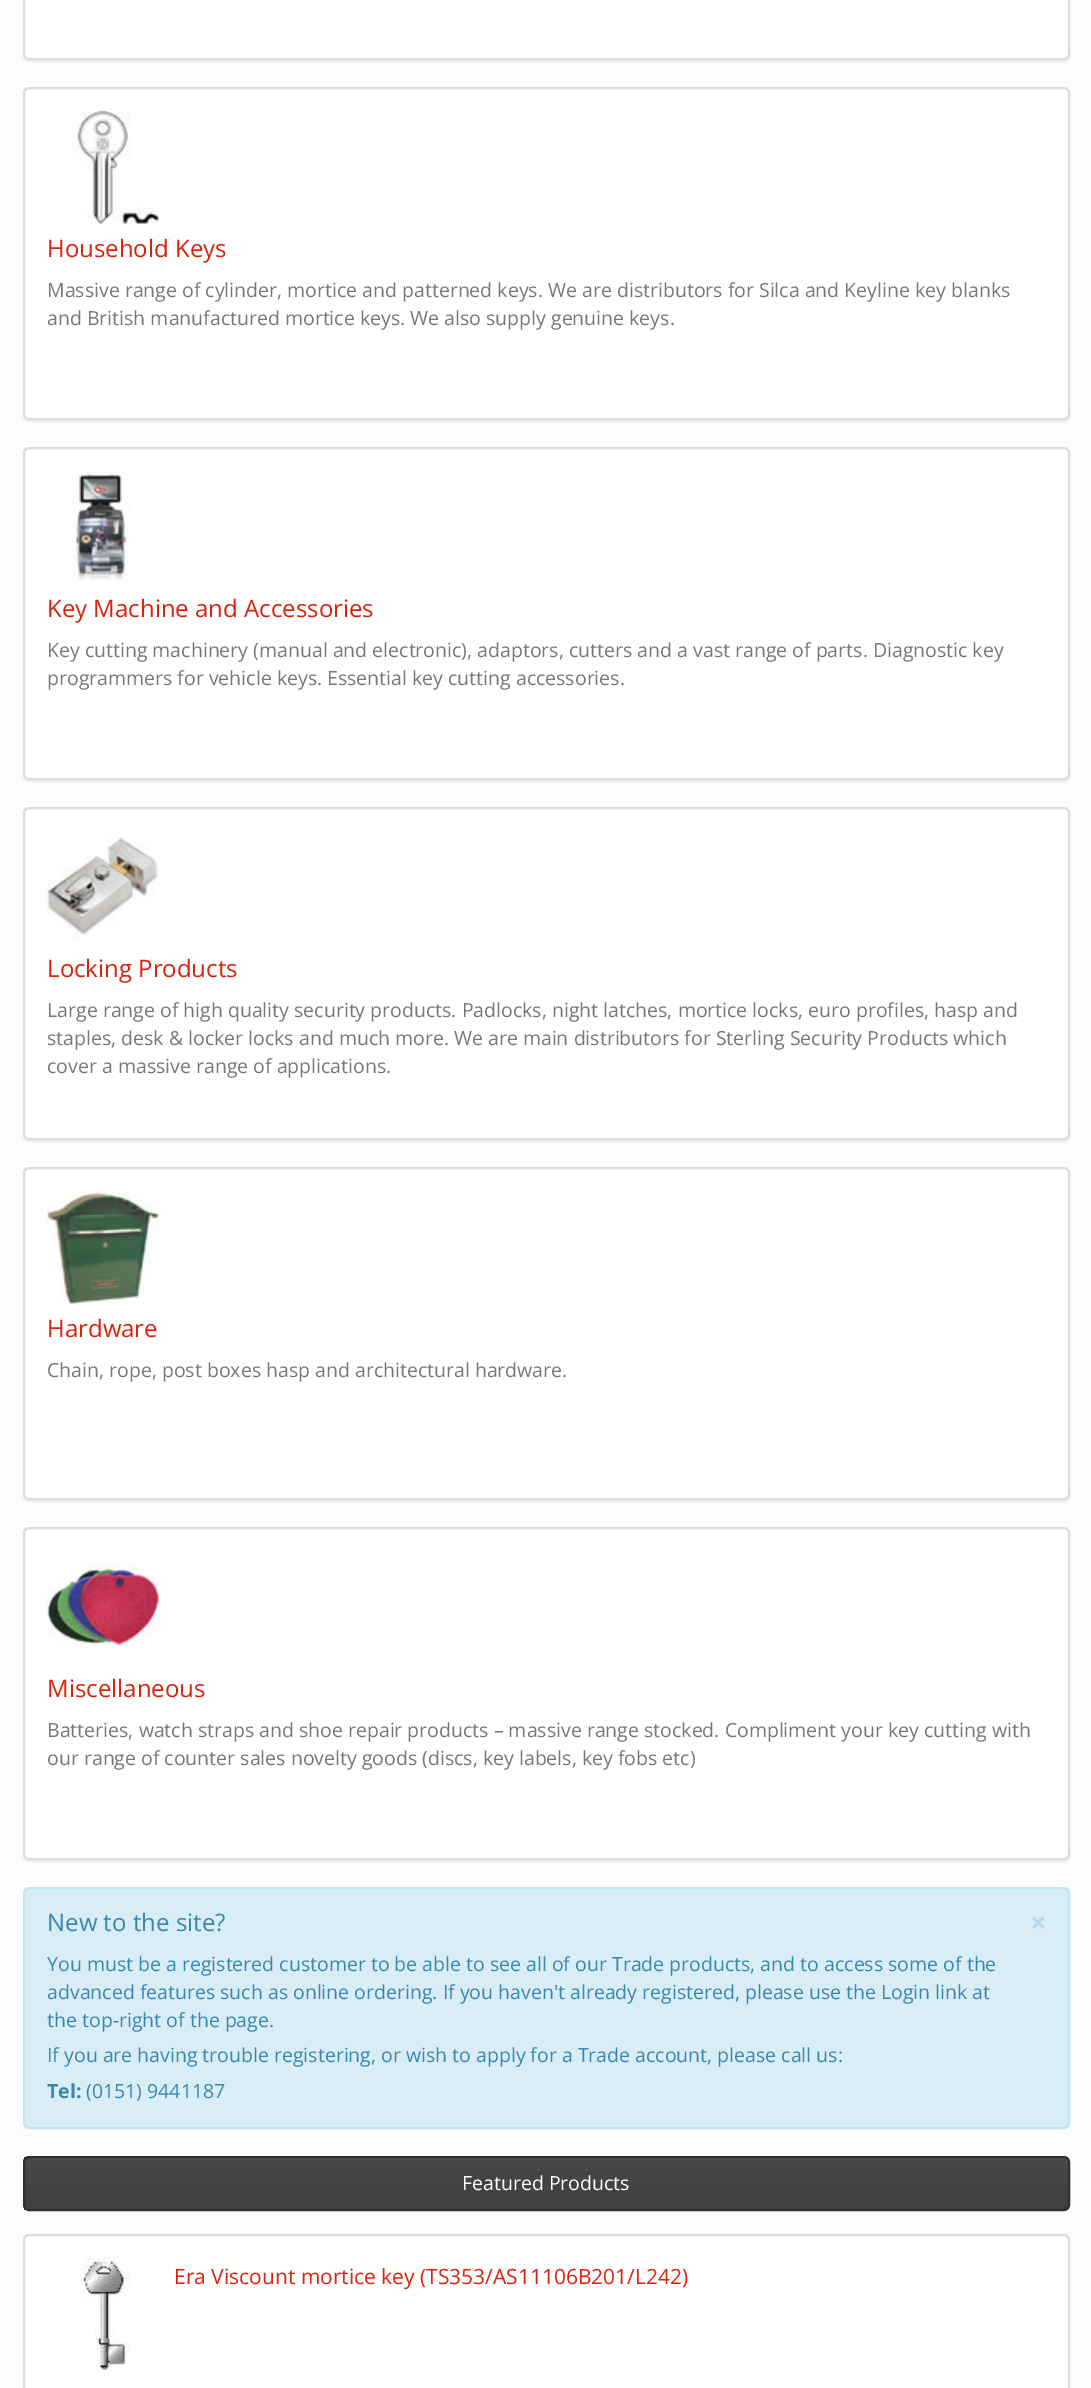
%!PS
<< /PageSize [1091 2388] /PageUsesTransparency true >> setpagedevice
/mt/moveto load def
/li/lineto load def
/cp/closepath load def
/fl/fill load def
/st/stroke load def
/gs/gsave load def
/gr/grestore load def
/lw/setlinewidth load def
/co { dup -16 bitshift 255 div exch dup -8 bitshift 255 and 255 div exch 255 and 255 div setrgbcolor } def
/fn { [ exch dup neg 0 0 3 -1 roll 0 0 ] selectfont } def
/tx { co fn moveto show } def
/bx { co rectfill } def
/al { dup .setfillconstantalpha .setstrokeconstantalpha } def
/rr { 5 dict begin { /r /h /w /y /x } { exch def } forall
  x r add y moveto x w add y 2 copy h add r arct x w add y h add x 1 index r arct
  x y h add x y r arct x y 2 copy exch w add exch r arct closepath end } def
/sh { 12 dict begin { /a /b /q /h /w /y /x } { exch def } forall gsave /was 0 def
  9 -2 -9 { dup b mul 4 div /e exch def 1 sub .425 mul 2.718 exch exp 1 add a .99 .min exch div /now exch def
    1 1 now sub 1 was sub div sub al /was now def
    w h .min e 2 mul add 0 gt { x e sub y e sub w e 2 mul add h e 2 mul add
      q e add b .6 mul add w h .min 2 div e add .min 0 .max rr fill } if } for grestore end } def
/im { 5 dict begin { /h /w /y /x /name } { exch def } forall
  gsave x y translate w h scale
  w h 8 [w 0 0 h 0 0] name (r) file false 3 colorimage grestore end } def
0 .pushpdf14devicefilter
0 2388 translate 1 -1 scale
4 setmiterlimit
0 0 1091 2388 16#FCFCFC bx
16#000000 co
23 -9 1047 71 6 1 .05 sh
16#FFFFFF co
24 -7 1045 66 5 rr gs fl gr
16#DDDDDD co
2 lw
st
16#000000 co
23 89 1047 333 6 1 .05 sh
16#FFFFFF co
24 88 1045 331 5 rr gs fl gr
16#DDDDDD co
st
(media/1.raw) 72 111 87 113 im
16#000000 co
23 449 1047 333 6 1 .05 sh
16#FFFFFF co
24 448 1045 331 5 rr gs fl gr
16#DDDDDD co
st
(media/2.raw) 71 471 60 110 im
16#000000 co
23 809 1047 333 6 1 .05 sh
16#FFFFFF co
24 808 1045 331 5 rr gs fl gr
16#DDDDDD co
st
(media/3.raw) 46 833 113 106 im
16#000000 co
23 1169 1047 333 6 1 .05 sh
16#FFFFFF co
24 1168 1045 331 5 rr gs fl gr
16#DDDDDD co
st
(media/4.raw) 46 1191 113 113 im
16#000000 co
23 1529 1047 333 6 1 .05 sh
16#FFFFFF co
24 1528 1045 331 5 rr gs fl gr
16#DDDDDD co
st
(media/5.raw) 46 1563 113 84 im
16#D9EDF7 co
24 1888 1045 240 5 rr gs fl gr
16#BCE8F1 co
st
gs
23 2156 1047 55 6 rr clip newpath
gs 24 2157 mt 1068 2157 li 1068 2210 li 24 2210 li cp clip newpath
<< /ShadingType 2 /ColorSpace /DeviceRGB /Coords [546 2157 546 2210] /Extend [true true] /Function << /FunctionType 3 /Domain [0 1] /Functions [<< /FunctionType 2 /Domain [0 1] /C0 [.31 .318 .318] /C1 [.278 .286 .286] /N 1 >> << /FunctionType 2 /Domain [0 1] /C0 [.278 .286 .286] /C1 [.247 .255 .255] /N 1 >>] /Bounds [.06] /Encode [0 1 0 1] >> >> shfill gr
gr
16#2E2F2F co
24 2157 1045 53 5 rr st
16#FFFFFF co
24 2235 1045 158 5 rr gs fl gr
16#DDDDDD co
st
(media/6.raw) 82 2257 49 113 im
(Household Keys) 47 257 /OpenSans-Regular 24 16#D9230F tx
(Massive range of cylinder, mortice and patterned keys. We are distributors for Silca and Keyline key blanks) 47 297 /OpenSans-Regular 19.5 16#777777 tx
(and British manufactured mortice keys. We also supply genuine keys.) 47 325 /OpenSans-Regular 19.5 16#777777 tx
(Key Machine and Accessories) 47 617 /OpenSans-Regular 24 16#D9230F tx
(Key cutting machinery \(manual and electronic\), adaptors, cutters and a vast range of parts. Diagnostic key) 47 657 /OpenSans-Regular 19.5 16#777777 tx
(programmers for vehicle keys. Essential key cutting accessories.) 47 685 /OpenSans-Regular 19.5 16#777777 tx
(Locking Products) 47 977 /OpenSans-Regular 24 16#D9230F tx
(Large range of high quality security products. Padlocks, night latches, mortice locks, euro profiles, hasp and) 47 1017 /OpenSans-Regular 19.5 16#777777 tx
(staples, desk & locker locks and much more. We are main distributors for Sterling Security Products which) 47 1045 /OpenSans-Regular 19.5 16#777777 tx
(cover a massive range of applications.) 47 1073 /OpenSans-Regular 19.5 16#777777 tx
(Hardware) 47 1337 /OpenSans-Regular 24 16#D9230F tx
(Chain, rope, post boxes hasp and architectural hardware.) 47 1377 /OpenSans-Regular 19.5 16#777777 tx
(Miscellaneous) 47 1697 /OpenSans-Regular 24 16#D9230F tx
(Batteries, watch straps and shoe repair products – massive range stocked. Compliment your key cutting with) 47 1737 /OpenSans-Regular 19.5 16#777777 tx
(our range of counter sales novelty goods \(discs, key labels, key fobs etc\)) 47 1765 /OpenSans-Regular 19.5 16#777777 tx
(New to the site?) 47 1931 /OpenSans-Regular 24 16#3A87AD tx
(×) 1030 1933 /OpenSans-Bold 29 16#B9D9E8 tx
(You must be a registered customer to be able to see all of our Trade products, and to access some of the) 47 1971 /OpenSans-Regular 19.5 16#3A87AD tx
(advanced features such as online ordering. If you haven't already registered, please use the Login link at) 47 1999 /OpenSans-Regular 19.5 16#3A87AD tx
(the top-right of the page.) 47 2027 /OpenSans-Regular 19.5 16#3A87AD tx
(If you are having trouble registering, or wish to apply for a Trade account, please call us:) 47 2062 /OpenSans-Regular 19.5 16#3A87AD tx
(Tel:) 47 2098 /OpenSans-Bold 19.5 16#3A87AD tx
(\(0151\) 9441187) 86 2098 /OpenSans-Regular 19.5 16#3A87AD tx
(Featured Products) 462 2190 /OpenSans-Regular 19.5 16#FFFFFF tx
(Era Viscount mortice key \(TS353/AS11106B201/L242\)) 174 2284 /OpenSans-Regular 21 16#D9230F tx
.poppdf14devicefilter showpage
